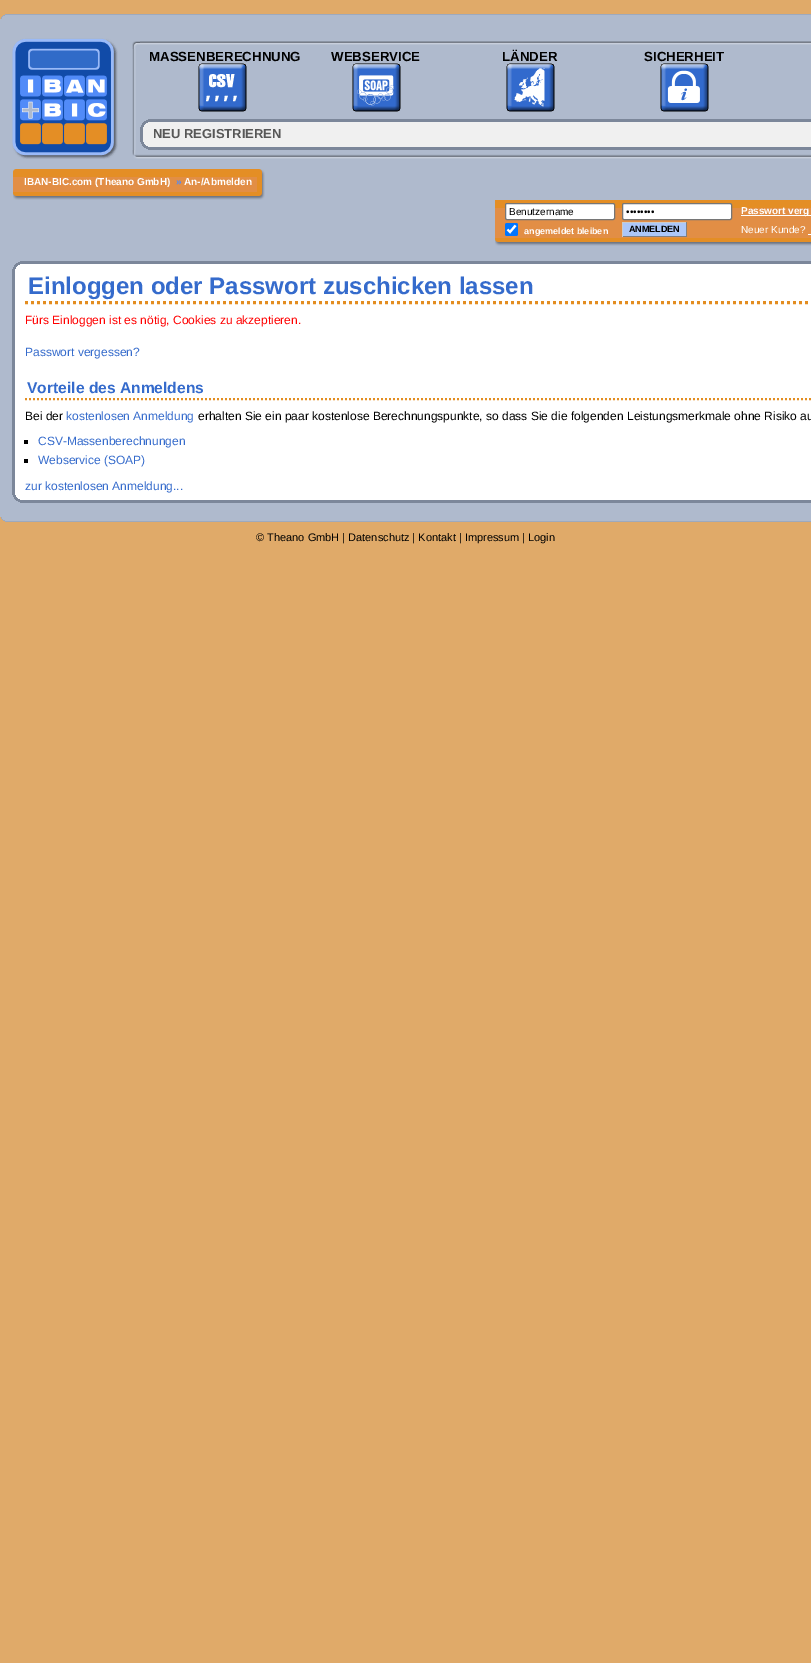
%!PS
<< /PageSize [811 1663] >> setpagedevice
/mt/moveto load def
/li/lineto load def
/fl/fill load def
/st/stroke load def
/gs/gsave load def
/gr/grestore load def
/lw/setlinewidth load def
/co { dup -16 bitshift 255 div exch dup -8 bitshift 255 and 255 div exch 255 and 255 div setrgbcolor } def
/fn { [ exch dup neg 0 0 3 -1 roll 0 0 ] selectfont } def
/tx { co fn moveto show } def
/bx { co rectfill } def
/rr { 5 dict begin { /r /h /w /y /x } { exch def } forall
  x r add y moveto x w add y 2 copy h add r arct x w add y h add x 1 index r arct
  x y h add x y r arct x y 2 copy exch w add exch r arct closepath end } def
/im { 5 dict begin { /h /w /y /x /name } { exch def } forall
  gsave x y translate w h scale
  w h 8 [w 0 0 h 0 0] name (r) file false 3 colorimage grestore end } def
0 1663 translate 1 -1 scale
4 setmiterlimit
0 0 811 1663 16#E0AA69 bx
0 19 811 498 16#AFBACD bx
5 14 806 1 16#9EA9BC bx
3 15 808 1 16#AFBACD bx
3 15 2 1 16#9EA9BC bx
2 16 809 1 16#AFBACD bx
2 16 1 1 16#9EA9BC bx
1 17 810 2 16#AFBACD bx
1 17 1 2 16#9EA9BC bx
(media/1.raw) 12 38 106 121 im
(media/2.raw) 140 41 671 4 im
(media/3.raw) 140 154 671 5 im
(media/4.raw) 130 39 10 121 im
(media/5.raw) 132 150 8 10 im
(media/6.raw) 132 39 8 10 im
(media/7.raw) 198 63 49 49 im
(media/8.raw) 303 51 98 61 im
(media/9.raw) 506 63 49 49 im
(media/10.raw) 660 63 49 49 im
148 119 663 1 16#7C879A bx
146 120 665 1 16#7C879A bx
144 121 667 1 16#7C879A bx
143 122 668 1 16#F0F0F0 bx
143 122 5 1 16#7C879A bx
142 123 669 2 16#F0F0F0 bx
142 123 4 1 16#7C879A bx
142 124 3 1 16#7C879A bx
141 125 670 2 16#F0F0F0 bx
141 125 3 2 16#7C879A bx
143 127 668 15 16#F0F0F0 bx
140 127 3 15 16#7C879A bx
141 142 670 2 16#F0F0F0 bx
141 142 3 2 16#7C879A bx
142 144 669 2 16#F0F0F0 bx
142 144 3 1 16#7C879A bx
142 145 4 1 16#7C879A bx
143 146 668 1 16#F0F0F0 bx
143 146 5 1 16#7C879A bx
144 147 667 1 16#7C879A bx
146 148 665 1 16#7C879A bx
148 149 663 1 16#7C879A bx
(media/11.raw) 13 169 244 8 im
(media/12.raw) 257 169 8 8 im
13 177 244 15 16#E28E45 bx
(media/13.raw) 257 177 8 15 im
(media/14.raw) 13 192 244 8 im
(media/15.raw) 257 192 8 8 im
495 200 316 8 16#E48E25 bx
495 208 316 30 16#E28E45 bx
16#FFFFFF co
505.5 203.5 109 16 1.5 rr gs fl gr
16#767676 co
st
16#FFFFFF co
622.5 203.5 109 16 1.5 rr gs fl gr
16#767676 co
st
741 215 70 1 16#FFFFFF bx
16#0075FF co
505 223 13 13 2 rr fl
16#FFFFFF co
2.1 lw
507.5 229.5 mt 510 232 li 515.5 225.5 li st
623 223 63 13 16#ACC7F9 bx
622 222 65 1 16#CCCCCC bx
686 222 1 15 16#808080 bx
622 236 65 1 16#808080 bx
622 222 1 15 16#CCCCCC bx
808 234 3 1 16#FFFFFF bx
(media/16.raw) 495 238 316 8 im
15 269 796 226 16#FFFFFF bx
12 261 3 241 16#7C879A bx
12 261 8 8 16#AFBACD bx
20 261 791 1 16#7C879A bx
18 262 793 1 16#7C879A bx
16 263 795 1 16#7C879A bx
15 264 796 1 16#FFFFFF bx
15 264 5 1 16#7C879A bx
14 265 797 2 16#FFFFFF bx
14 265 4 1 16#7C879A bx
14 266 3 1 16#7C879A bx
13 267 798 2 16#FFFFFF bx
13 267 3 2 16#7C879A bx
16#E38D20 co
3 lw
[3 3] 0 setdash
25 302.5 mt 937 302.5 li st
2 lw
[2 2] 0 setdash
25 399 mt 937 399 li st
24 440 4 4 16#000000 bx
24 459 4 4 16#000000 bx
12 495 3 7 16#AFBACD bx
13 495 798 2 16#FFFFFF bx
13 495 3 2 16#7C879A bx
14 497 797 2 16#FFFFFF bx
14 497 3 1 16#7C879A bx
14 498 4 1 16#7C879A bx
15 499 796 1 16#FFFFFF bx
15 499 5 1 16#7C879A bx
16 500 795 1 16#7C879A bx
18 501 793 1 16#7C879A bx
20 502 791 1 16#7C879A bx
1 517 810 2 16#AFBACD bx
1 517 1 2 16#9EA9BC bx
2 519 809 1 16#AFBACD bx
2 519 1 1 16#9EA9BC bx
3 520 808 1 16#AFBACD bx
3 520 2 1 16#9EA9BC bx
5 521 806 1 16#9EA9BC bx
(MASSENBERECHNUNG) 149 61 /LiberationSans-Bold 13.25 16#000000 tx
(WEBSERVICE) 331 61 /LiberationSans-Bold 13.25 16#000000 tx
(LÄNDER) 502 61 /LiberationSans-Bold 13.25 16#000000 tx
(SICHERHEIT) 644 61 /LiberationSans-Bold 13.25 16#000000 tx
(NEU REGISTRIEREN) 153 138 /LiberationSans-Bold 13 16#575757 tx
(IBAN-BIC.com \(Theano GmbH\)) 24 185 /LiberationSans-Bold 10 16#FFFFFF tx
(») 176 185 /LiberationSans-Bold 10 16#518BF9 tx
(An-/Abmelden) 184 185 /LiberationSans-Bold 10 16#FFFFFF tx
(Benutzername) 509 215 /LiberationSans-Regular 10 16#000000 tx
(••••••••) 626 215 /LiberationSans-Regular 10 16#000000 tx
(Passwort verg) 741 214 /LiberationSans-Bold 10 16#FFFFFF tx
(angemeldet bleiben) 524 234 /LiberationSans-Bold 9 16#FFFFFF tx
(ANMELDEN) 629 232 /LiberationSans-Bold 9 16#000000 tx
(Neuer Kunde?) 741 233 /LiberationSans-Regular 10 16#FFFFFF tx
(Einloggen oder Passwort zuschicken lassen) 28 294 /LiberationSans-Bold 24 16#356BCC tx
(Fürs Einloggen ist es nötig, Cookies zu akzeptieren.) 25 324 /LiberationSans-Regular 12 16#FF0000 tx
(Passwort vergessen?) 25 356 /LiberationSans-Regular 12 16#356BCC tx
(Vorteile des Anmeldens) 27 393 /LiberationSans-Bold 15.6 16#356BCC tx
(Bei der) 25 420 /LiberationSans-Regular 12 16#000000 tx
(kostenlosen Anmeldung) 66 420 /LiberationSans-Regular 12 16#356BCC tx
(erhalten Sie ein paar kostenlose Berechnungspunkte, so dass Sie die folgenden Leistungsmerkmale ohne Risiko au) 198 420 /LiberationSans-Regular 12 16#000000 tx
(CSV-Massenberechnungen) 38 445 /LiberationSans-Regular 12 16#356BCC tx
(Webservice \(SOAP\)) 38 464 /LiberationSans-Regular 12 16#356BCC tx
(zur kostenlosen Anmeldung...) 25 490 /LiberationSans-Regular 12 16#356BCC tx
(© Theano GmbH | Datenschutz | Kontakt | Impressum | Login) 256 541 /LiberationSans-Regular 11 16#000000 tx
showpage
